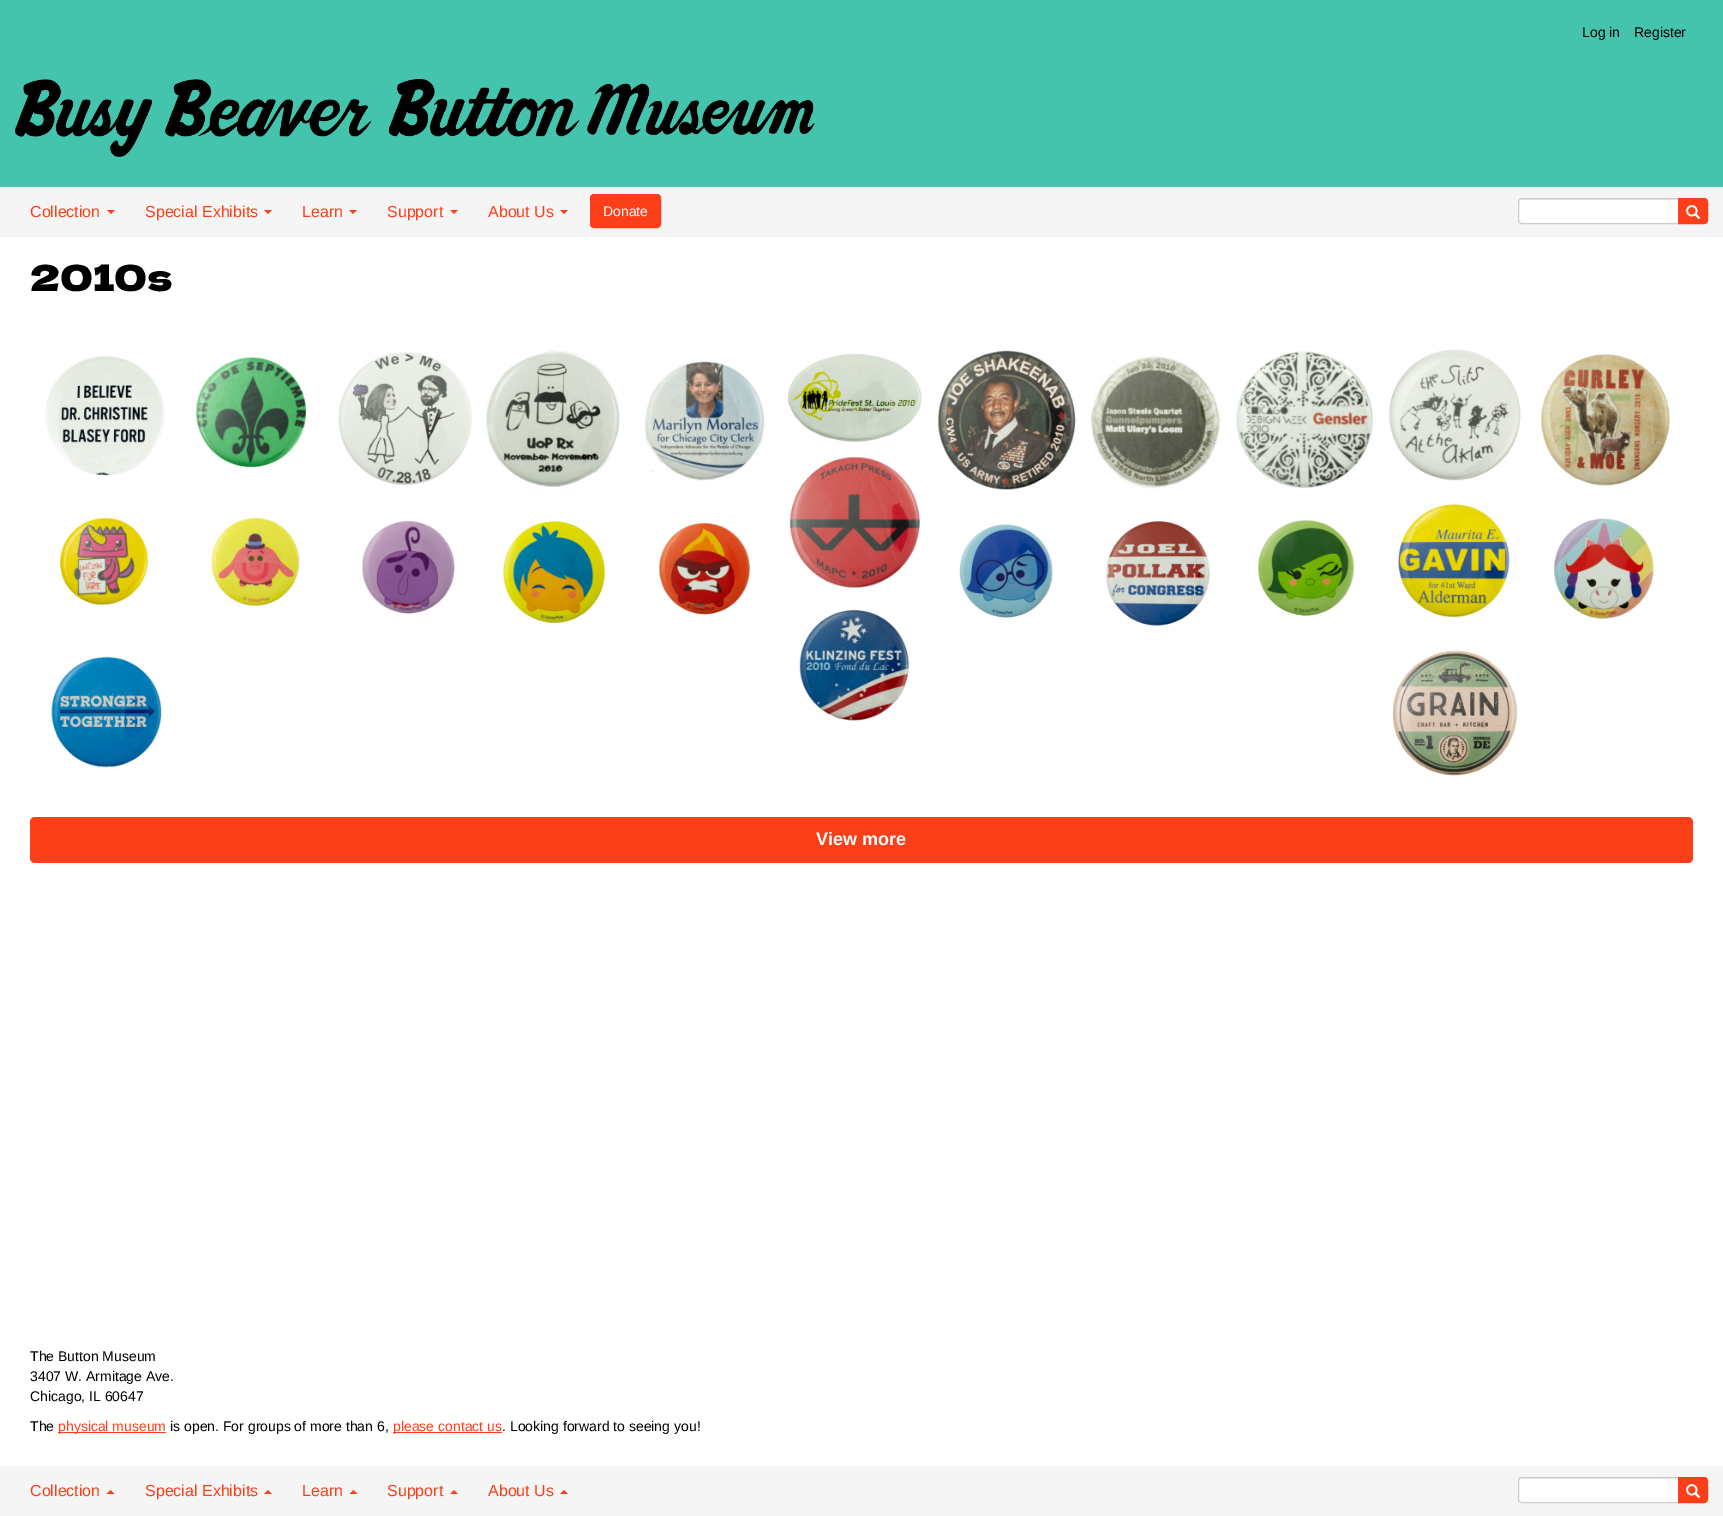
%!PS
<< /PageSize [1723 1516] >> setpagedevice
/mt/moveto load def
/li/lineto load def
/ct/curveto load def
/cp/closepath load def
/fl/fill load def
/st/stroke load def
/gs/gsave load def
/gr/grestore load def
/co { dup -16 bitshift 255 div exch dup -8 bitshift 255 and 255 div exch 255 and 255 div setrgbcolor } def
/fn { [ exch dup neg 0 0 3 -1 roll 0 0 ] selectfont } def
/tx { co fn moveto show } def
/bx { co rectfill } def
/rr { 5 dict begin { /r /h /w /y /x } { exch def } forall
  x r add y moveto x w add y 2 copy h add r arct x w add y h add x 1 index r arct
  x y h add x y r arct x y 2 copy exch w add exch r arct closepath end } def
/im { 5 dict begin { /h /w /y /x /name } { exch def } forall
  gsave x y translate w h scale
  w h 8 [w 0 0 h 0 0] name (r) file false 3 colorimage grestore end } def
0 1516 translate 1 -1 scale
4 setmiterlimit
0 0 1723 1516 16#FFFFFF bx
0 0 1723 187 16#45C4AD bx
(media/1.raw) 15 79 800 78 im
0 187 1723 50 16#F5F5F5 bx
16#FA3F19 co
107 210 mt 115 210 li 111 214 li cp fl
264 210 mt 272 210 li 268 214 li cp fl
349 210 mt 357 210 li 353 214 li cp fl
450 210 mt 458 210 li 454 214 li cp fl
560 210 mt 568 210 li 564 214 li cp fl
590.5 194.5 70 33 3.5 rr gs fl gr
st
16#FFFFFF co
1522 198 mt 1679 198 li 1679 224 li 1522 224 li 1520 224 1518 222 1518 220 ct 1518 202 li 1518 200 1520 198 1522 198 ct cp fl
16#ECECEC co
1522 200 mt 1678 200 li 1678 199 li 1522 199 li 1520 199 1519 200 1519 202 ct 1519 201 1520 200 1522 200 ct cp fl
16#CCCCCC co
1522 198.5 mt 1678.5 198.5 li 1678.5 223.5 li 1522 223.5 li 1520 223.5 1518.5 222 1518.5 220 ct 1518.5 202 li 1518.5 200 1520 198.5 1522 198.5 ct cp st
16#FA3F19 co
1678.5 198.5 mt 1704 198.5 li 1706 198.5 1707.5 200 1707.5 202 ct 1707.5 220 li 1707.5 222 1706 223.5 1704 223.5 ct 1678.5 223.5 li cp gs fl gr
st
(media/2.raw) 1686 205 15 14 im
(media/3.raw) 45 356 120 120 im
(media/4.raw) 196 356 110 112 im
(media/5.raw) 338 352 134 134 im
(media/6.raw) 486 349 134 138 im
(media/7.raw) 644 361 121 120 im
(media/8.raw) 787 353 135 89 im
(media/9.raw) 937 350 139 140 im
(media/10.raw) 1090 356 131 133 im
(media/11.raw) 1236 351 137 137 im
(media/12.raw) 1388 349 133 132 im
(media/13.raw) 1541 354 129 132 im
(media/14.raw) 60 517 89 89 im
(media/15.raw) 211 518 89 89 im
(media/16.raw) 361 520 94 94 im
(media/17.raw) 503 521 103 102 im
(media/18.raw) 659 523 91 92 im
(media/19.raw) 789 456 131 132 im
(media/20.raw) 959 524 94 94 im
(media/21.raw) 1105 521 105 105 im
(media/22.raw) 1258 519 97 97 im
(media/23.raw) 1398 504 112 114 im
(media/24.raw) 1554 518 100 102 im
(media/25.raw) 51 656 111 112 im
(media/26.raw) 799 610 111 111 im
(media/27.raw) 1392 650 126 126 im
30 817 1663 46 5 rr fl
58 1432 108 1 16#FA3F19 bx
393 1432 109 1 16#FA3F19 bx
0 1466 1723 50 16#F5F5F5 bx
16#FA3F19 co
114.5 1494 mt 106.5 1494 li 110.5 1490 li cp fl
272 1494 mt 264 1494 li 268 1490 li cp fl
357.5 1494 mt 349.5 1494 li 353.5 1490 li cp fl
458 1494 mt 450 1494 li 454 1490 li cp fl
568 1494 mt 560 1494 li 564 1490 li cp fl
16#FFFFFF co
1522 1477 mt 1679 1477 li 1679 1503 li 1522 1503 li 1520 1503 1518 1501 1518 1499 ct 1518 1481 li 1518 1479 1520 1477 1522 1477 ct cp fl
16#ECECEC co
1522 1479 mt 1678 1479 li 1678 1478 li 1522 1478 li 1520 1478 1519 1479 1519 1481 ct 1519 1480 1520 1479 1522 1479 ct cp fl
16#CCCCCC co
1522 1477.5 mt 1678.5 1477.5 li 1678.5 1502.5 li 1522 1502.5 li 1520 1502.5 1518.5 1501 1518.5 1499 ct 1518.5 1481 li 1518.5 1479 1520 1477.5 1522 1477.5 ct cp st
16#FA3F19 co
1678.5 1477.5 mt 1704 1477.5 li 1706 1477.5 1707.5 1479 1707.5 1481 ct 1707.5 1499 li 1707.5 1501 1706 1502.5 1704 1502.5 ct 1678.5 1502.5 li cp gs fl gr
st
(media/2.raw) 1686 1484 15 14 im
(Log in) 1582 37 /LiberationSans-Regular 14 16#000000 tx
(Register) 1634 37 /LiberationSans-Regular 14 16#000000 tx
(Collection) 30 217 /LiberationSans-Regular 16 16#FA3F19 tx
(Special Exhibits) 145 217 /LiberationSans-Regular 16 16#FA3F19 tx
(Learn) 302 217 /LiberationSans-Regular 16 16#FA3F19 tx
(Support) 387 217 /LiberationSans-Regular 16 16#FA3F19 tx
(About Us) 488 217 /LiberationSans-Regular 16 16#FA3F19 tx
(Donate) 603 216 /LiberationSans-Regular 14 16#FFFFFF tx
(2010s) 30 291 /DelaGothicOne-Regular 36 16#000000 tx
(View more) 816 845 /LiberationSans-Bold 18 16#FFFFFF tx
(The Button Museum) 30 1361 /LiberationSans-Regular 14 16#000000 tx
(3407 W. Armitage Ave.) 30 1381 /LiberationSans-Regular 14 16#000000 tx
(Chicago, IL 60647) 30 1401 /LiberationSans-Regular 14 16#000000 tx
(The) 30 1431 /LiberationSans-Regular 14 16#000000 tx
(physical museum) 58 1431 /LiberationSans-Regular 14 16#FA3F19 tx
(is open. For groups of more than 6,) 170 1431 /LiberationSans-Regular 14 16#000000 tx
(please contact us) 393 1431 /LiberationSans-Regular 14 16#FA3F19 tx
(. Looking forward to seeing you!) 502 1431 /LiberationSans-Regular 14 16#000000 tx
(Collection) 30 1496 /LiberationSans-Regular 16 16#FA3F19 tx
(Special Exhibits) 145 1496 /LiberationSans-Regular 16 16#FA3F19 tx
(Learn) 302 1496 /LiberationSans-Regular 16 16#FA3F19 tx
(Support) 387 1496 /LiberationSans-Regular 16 16#FA3F19 tx
(About Us) 488 1496 /LiberationSans-Regular 16 16#FA3F19 tx
showpage
